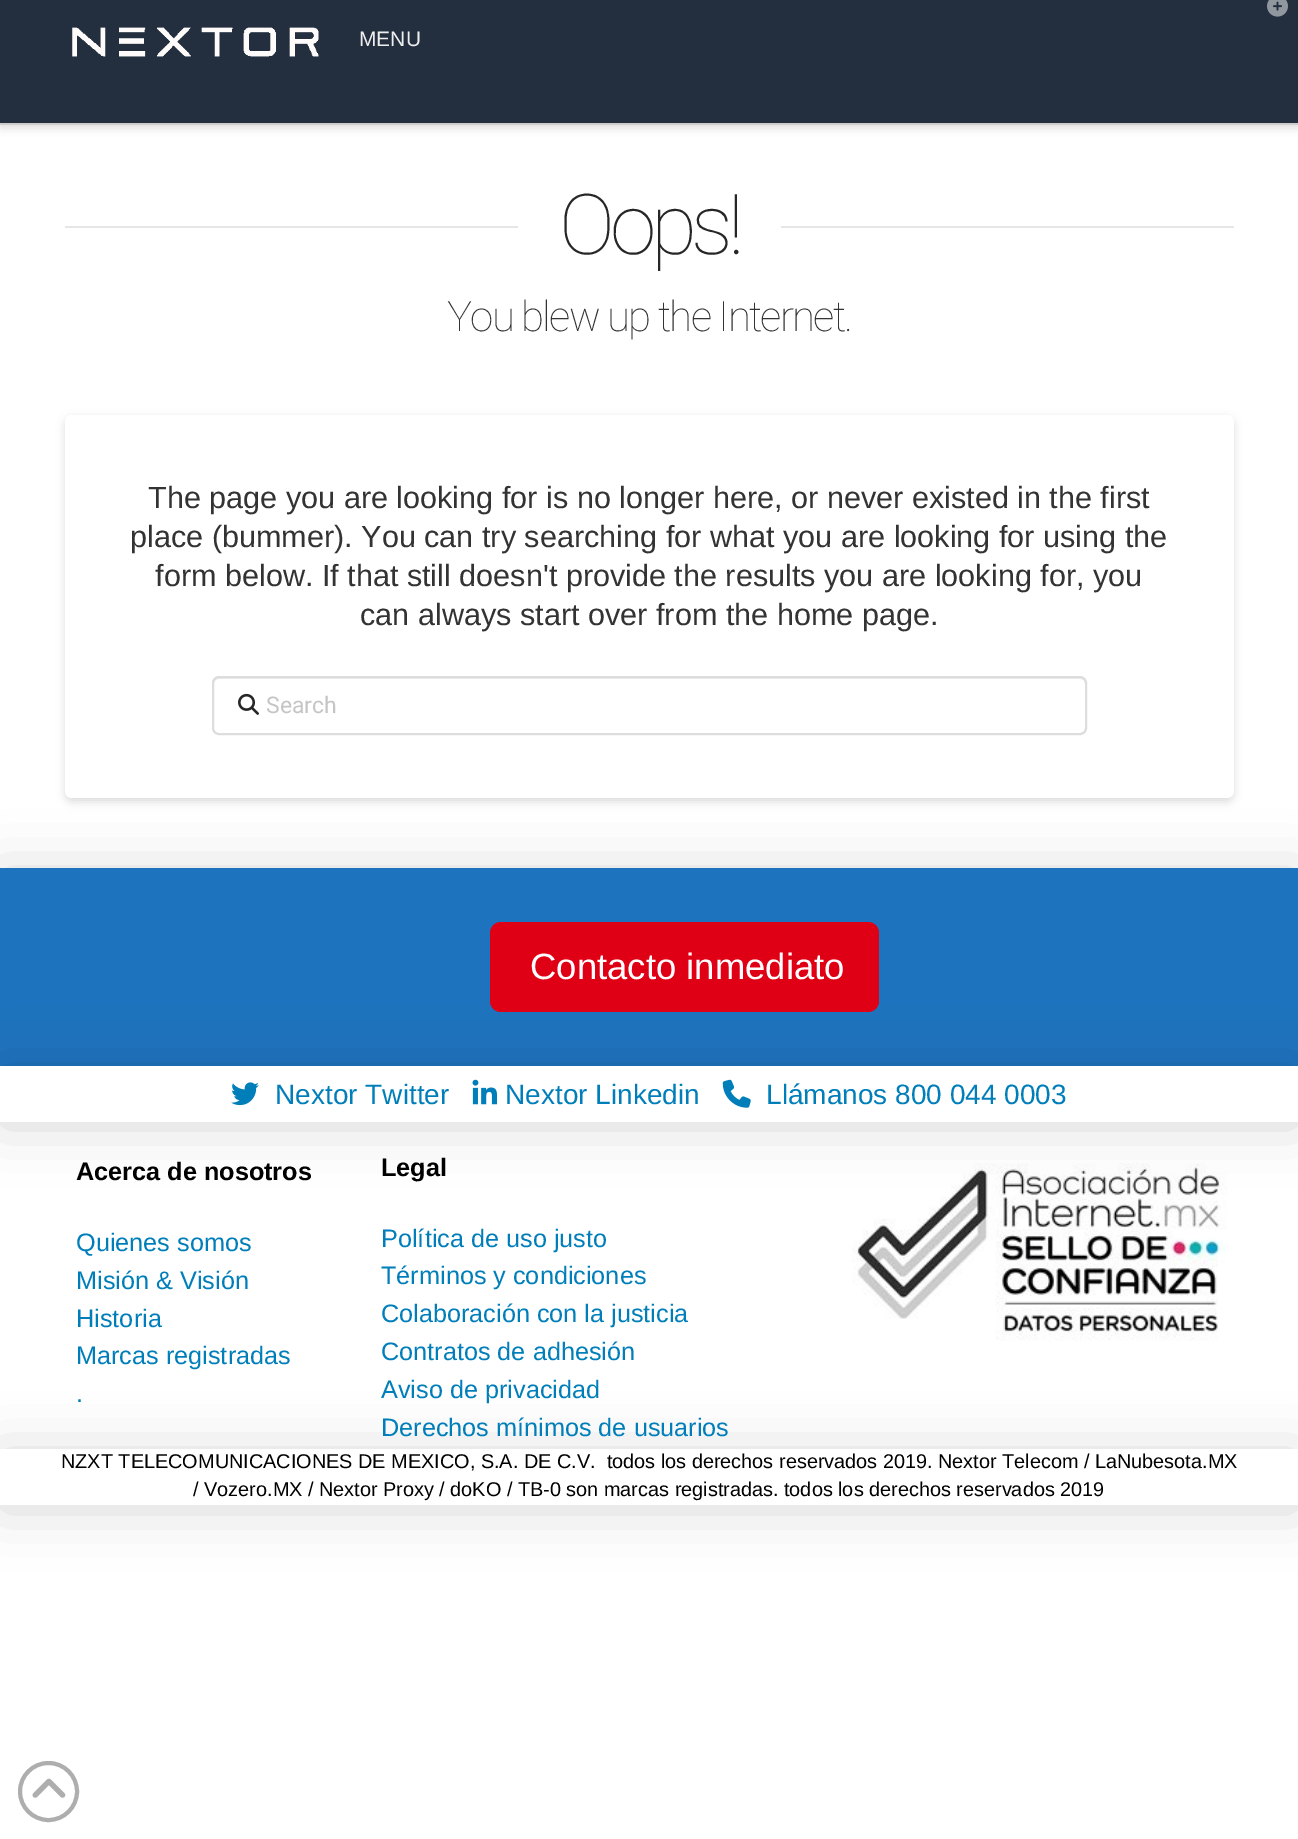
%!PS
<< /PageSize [1298 1839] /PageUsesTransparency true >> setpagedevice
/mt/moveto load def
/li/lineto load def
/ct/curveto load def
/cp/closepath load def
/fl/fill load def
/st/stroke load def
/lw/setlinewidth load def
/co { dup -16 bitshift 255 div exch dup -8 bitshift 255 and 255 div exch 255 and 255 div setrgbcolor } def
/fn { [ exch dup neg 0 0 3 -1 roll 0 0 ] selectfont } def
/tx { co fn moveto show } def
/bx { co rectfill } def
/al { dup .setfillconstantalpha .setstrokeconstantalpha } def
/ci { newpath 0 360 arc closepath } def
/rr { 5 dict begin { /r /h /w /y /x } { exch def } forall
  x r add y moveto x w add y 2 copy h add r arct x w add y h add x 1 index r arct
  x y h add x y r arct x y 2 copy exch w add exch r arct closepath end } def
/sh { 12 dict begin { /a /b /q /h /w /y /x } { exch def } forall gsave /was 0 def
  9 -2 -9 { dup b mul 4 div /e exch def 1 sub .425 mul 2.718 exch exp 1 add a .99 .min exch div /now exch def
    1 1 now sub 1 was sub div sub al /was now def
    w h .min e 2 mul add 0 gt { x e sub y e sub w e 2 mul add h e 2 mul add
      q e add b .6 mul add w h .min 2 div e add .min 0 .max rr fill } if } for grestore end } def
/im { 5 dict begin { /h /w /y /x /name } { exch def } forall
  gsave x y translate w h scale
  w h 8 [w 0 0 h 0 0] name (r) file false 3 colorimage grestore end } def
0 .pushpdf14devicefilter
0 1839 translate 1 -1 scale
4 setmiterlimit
0 0 1298 1839 16#FFFFFF bx
16#000000 co
0 4 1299 124 0 4.5 .13 sh
0 0 1298 123 16#232F3E bx
(media/1.raw) 1267 0 21 17 im
0 123 1298 2 16#CCCCCC bx
(media/2.raw) 72 27 247 30 im
65 226 453 2 16#E6E6E6 bx
781 226 453 2 16#E6E6E6 bx
16#000000 co
65 418 1169 384 7 4.5 .13 sh
16#FFFFFF co
65 415 1169 383 7 rr fl
16#ECECEC co
219 679 mt 1080 679 li 1083 679 1085 681 1085 684 ct 1085 682 li 1085 679 1083 677 1080 677 ct 219 677 li 216 677 214 679 214 682 ct 214 684 li 214 681 216 679 219 679 ct cp fl
16#DDDDDD co
2 lw
213 677 873 57 6 rr st
(media/3.raw) 238 693 21 22 im
16#000000 co
0 872 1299 197 0 28 .15 sh
0 868 1298 198 16#1E73BE bx
16#E00015 co
490 922 389 90 11 rr fl
(media/7.raw) 852 1163 375 178 im
16#000000 co
0 1069 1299 56 0 28 .15 sh
0 1066 1298 56 16#FFFFFF bx
(media/4.raw) 231 1082 28 24 im
(media/5.raw) 472 1079 25 26 im
(media/6.raw) 722 1079 29 29 im
16#000000 co
0 1453 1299 56 0 28 .15 sh
0 1449 1298 56 16#FFFFFF bx
16#AEAEAE co
4 lw
48.5 1791.5 28.5 ci st
(media/8.raw) 32 1778 34 20 im
(MENU) 359 46 /LiberationSans-Regular 21 16#EEEEEE tx
/Roboto-Thin 84 fn
16#272727 co
559 254 mt -5.25 0 (Oops!) ashow
/Roboto-Thin 42 fn
16#333333 co
447 331 mt -1.75 0 (You blew up the Internet.) ashow
(The page you are looking for is no longer here, or never existed in the first) 148 508 /LiberationSans-Regular 30.6 16#333333 tx
(place \(bummer\). You can try searching for what you are looking for using the) 130 547 /LiberationSans-Regular 30.6 16#333333 tx
(form below. If that still doesn't provide the results you are looking for, you) 155 586 /LiberationSans-Regular 30.6 16#333333 tx
(can always start over from the home page.) 360 625 /LiberationSans-Regular 30.6 16#333333 tx
(Search) 266 713 /Roboto-Regular 23 16#C5C5C5 tx
(Contacto inmediato) 530 979 /LiberationSans-Regular 36.5 16#FFFDFD tx
(Nextor Twitter) 275 1104 /LiberationSans-Regular 28 16#007EB9 tx
(Nextor Linkedin) 505 1104 /LiberationSans-Regular 28 16#007EB9 tx
(Llámanos 800 044 0003) 766 1104 /LiberationSans-Regular 28 16#007EB9 tx
(Acerca de nosotros) 76 1180 /LiberationSans-Bold 25.25 16#000000 tx
(Quienes somos) 76 1251 /LiberationSans-Regular 25.25 16#007EB9 tx
(Misión & Visión) 76 1289 /LiberationSans-Regular 25.25 16#007EB9 tx
(Historia) 76 1327 /LiberationSans-Regular 25.25 16#007EB9 tx
(Marcas registradas) 76 1364 /LiberationSans-Regular 25.25 16#007EB9 tx
(.) 76 1402 /LiberationSans-Regular 25.25 16#007EB9 tx
(Legal) 381 1176 /LiberationSans-Bold 25.25 16#000000 tx
(Política de uso justo) 381 1247 /LiberationSans-Regular 25.25 16#007EB9 tx
(Términos y condiciones) 381 1284 /LiberationSans-Regular 25.25 16#007EB9 tx
(Colaboración con la justicia) 381 1322 /LiberationSans-Regular 25.25 16#007EB9 tx
(Contratos de adhesión) 381 1360 /LiberationSans-Regular 25.25 16#007EB9 tx
(Aviso de privacidad) 381 1398 /LiberationSans-Regular 25.25 16#007EB9 tx
(Derechos mínimos de usuarios) 381 1436 /LiberationSans-Regular 25.25 16#007EB9 tx
(NZXT TELECOMUNICACIONES DE MEXICO, S.A. DE C.V.  todos los derechos reservados 2019. Nextor Telecom / LaNubesota.MX) 61 1468 /LiberationSans-Regular 19.88 16#000000 tx
(/ Vozero.MX / Nextor Proxy / doKO / TB-0 son marcas registradas. todos los derechos reservados 2019) 193 1496 /LiberationSans-Regular 19.88 16#000000 tx
.poppdf14devicefilter showpage
